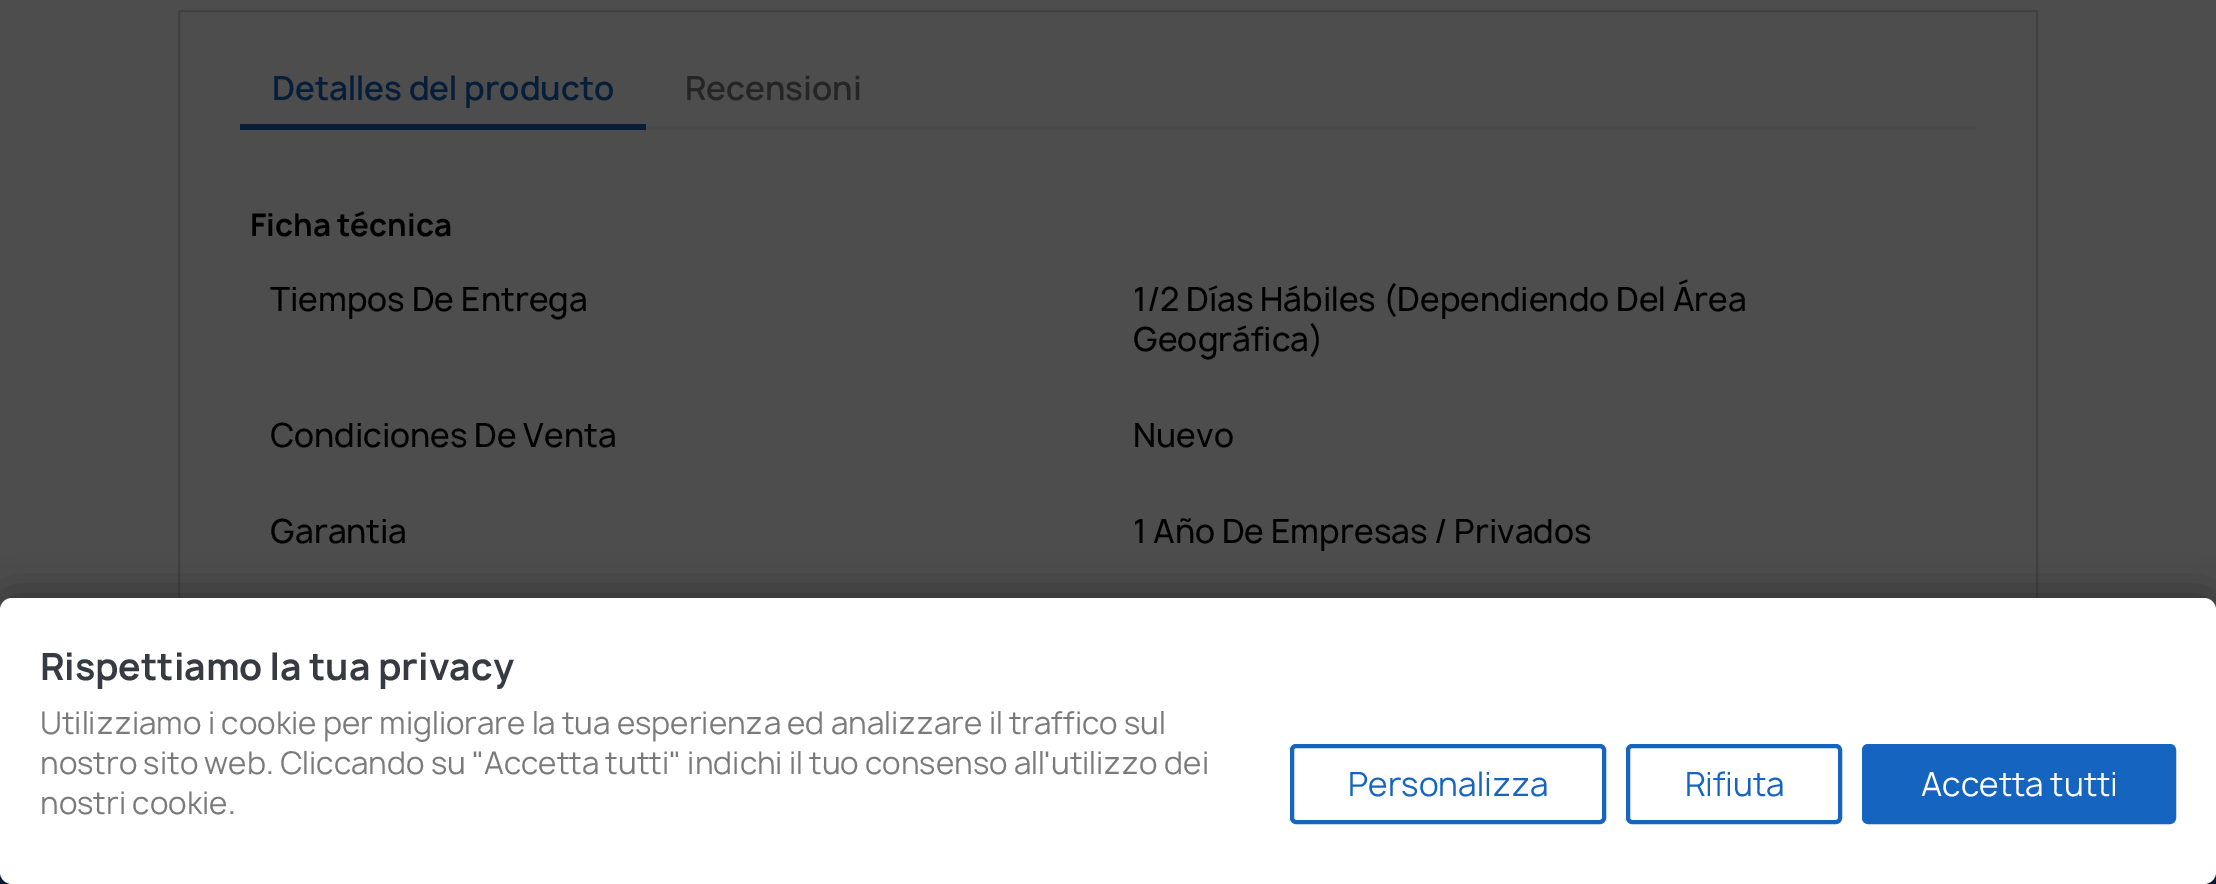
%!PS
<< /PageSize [2216 884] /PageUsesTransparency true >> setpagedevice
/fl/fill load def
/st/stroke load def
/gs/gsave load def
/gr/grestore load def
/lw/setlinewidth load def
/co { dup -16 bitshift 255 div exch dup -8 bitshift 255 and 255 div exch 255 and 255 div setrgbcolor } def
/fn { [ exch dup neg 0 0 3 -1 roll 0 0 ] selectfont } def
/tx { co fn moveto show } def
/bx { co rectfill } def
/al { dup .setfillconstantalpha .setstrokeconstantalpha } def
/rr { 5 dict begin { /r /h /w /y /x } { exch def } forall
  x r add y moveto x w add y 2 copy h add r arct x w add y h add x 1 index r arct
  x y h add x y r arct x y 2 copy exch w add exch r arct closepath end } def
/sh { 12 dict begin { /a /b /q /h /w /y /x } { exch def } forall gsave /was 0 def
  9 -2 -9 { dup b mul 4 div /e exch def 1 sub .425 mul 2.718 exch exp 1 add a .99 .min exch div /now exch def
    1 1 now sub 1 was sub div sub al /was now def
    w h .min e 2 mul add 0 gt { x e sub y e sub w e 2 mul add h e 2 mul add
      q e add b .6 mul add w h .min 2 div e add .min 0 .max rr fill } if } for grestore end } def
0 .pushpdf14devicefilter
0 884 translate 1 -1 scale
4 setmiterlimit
0 0 2216 884 16#4D4D4D bx
16#414141 co
2 lw
179 11 1858 650 rectstroke
646 126 1330 4 16#4A4A4A bx
240 124 406 6 16#061E3A bx
0 872 2216 12 16#061E3A bx
16#000000 co
0 598 2216 286 12 20 .4 sh
16#FFFFFF co
0 598 2216 286 12 rr fl
16#1565C0 co
4 lw
1292 746 312 76 4 rr st
1628 746 212 76 4 rr st
1864 746 310 76 4 rr gs fl gr
st
(Detalles del producto) 272 100 /Manrope-SemiBold 32 16#061E3A tx
(Recensioni) 685 100 /Manrope-SemiBold 32 16#252525 tx
(Ficha técnica) 250 236 /Manrope-Bold 30 16#000000 tx
(Tiempos De Entrega) 270 311 /Manrope-Medium 32 16#000000 tx
(1/2 Días Hábiles \(Dependiendo Del Área) 1133 311 /Manrope-Medium 32 16#000000 tx
(Geográfica\)) 1133 351 /Manrope-Medium 32 16#000000 tx
(Condiciones De Venta) 270 447 /Manrope-Medium 32 16#000000 tx
(Nuevo) 1133 447 /Manrope-Medium 32 16#000000 tx
(Garantia) 270 543 /Manrope-Medium 32 16#000000 tx
(1 Año De Empresas / Privados) 1133 543 /Manrope-Medium 32 16#000000 tx
(Rispettiamo la tua privacy) 40 680 /Manrope-Bold 36 16#363A42 tx
(Utilizziamo i cookie per migliorare la tua esperienza ed analizzare il traffico sul) 40 734 /Manrope-Regular 30 16#7A7A7A tx
(nostro sito web. Cliccando su "Accetta tutti" indichi il tuo consenso all'utilizzo dei) 40 774 /Manrope-Regular 30 16#7A7A7A tx
(nostri cookie.) 40 814 /Manrope-Regular 30 16#7A7A7A tx
(Personalizza) 1348 796 /Manrope-Regular 32 16#1565C0 tx
(Rifiuta) 1685 796 /Manrope-Regular 32 16#1565C0 tx
(Accetta tutti) 1921 796 /Manrope-Regular 32 16#FFFFFF tx
.poppdf14devicefilter showpage
